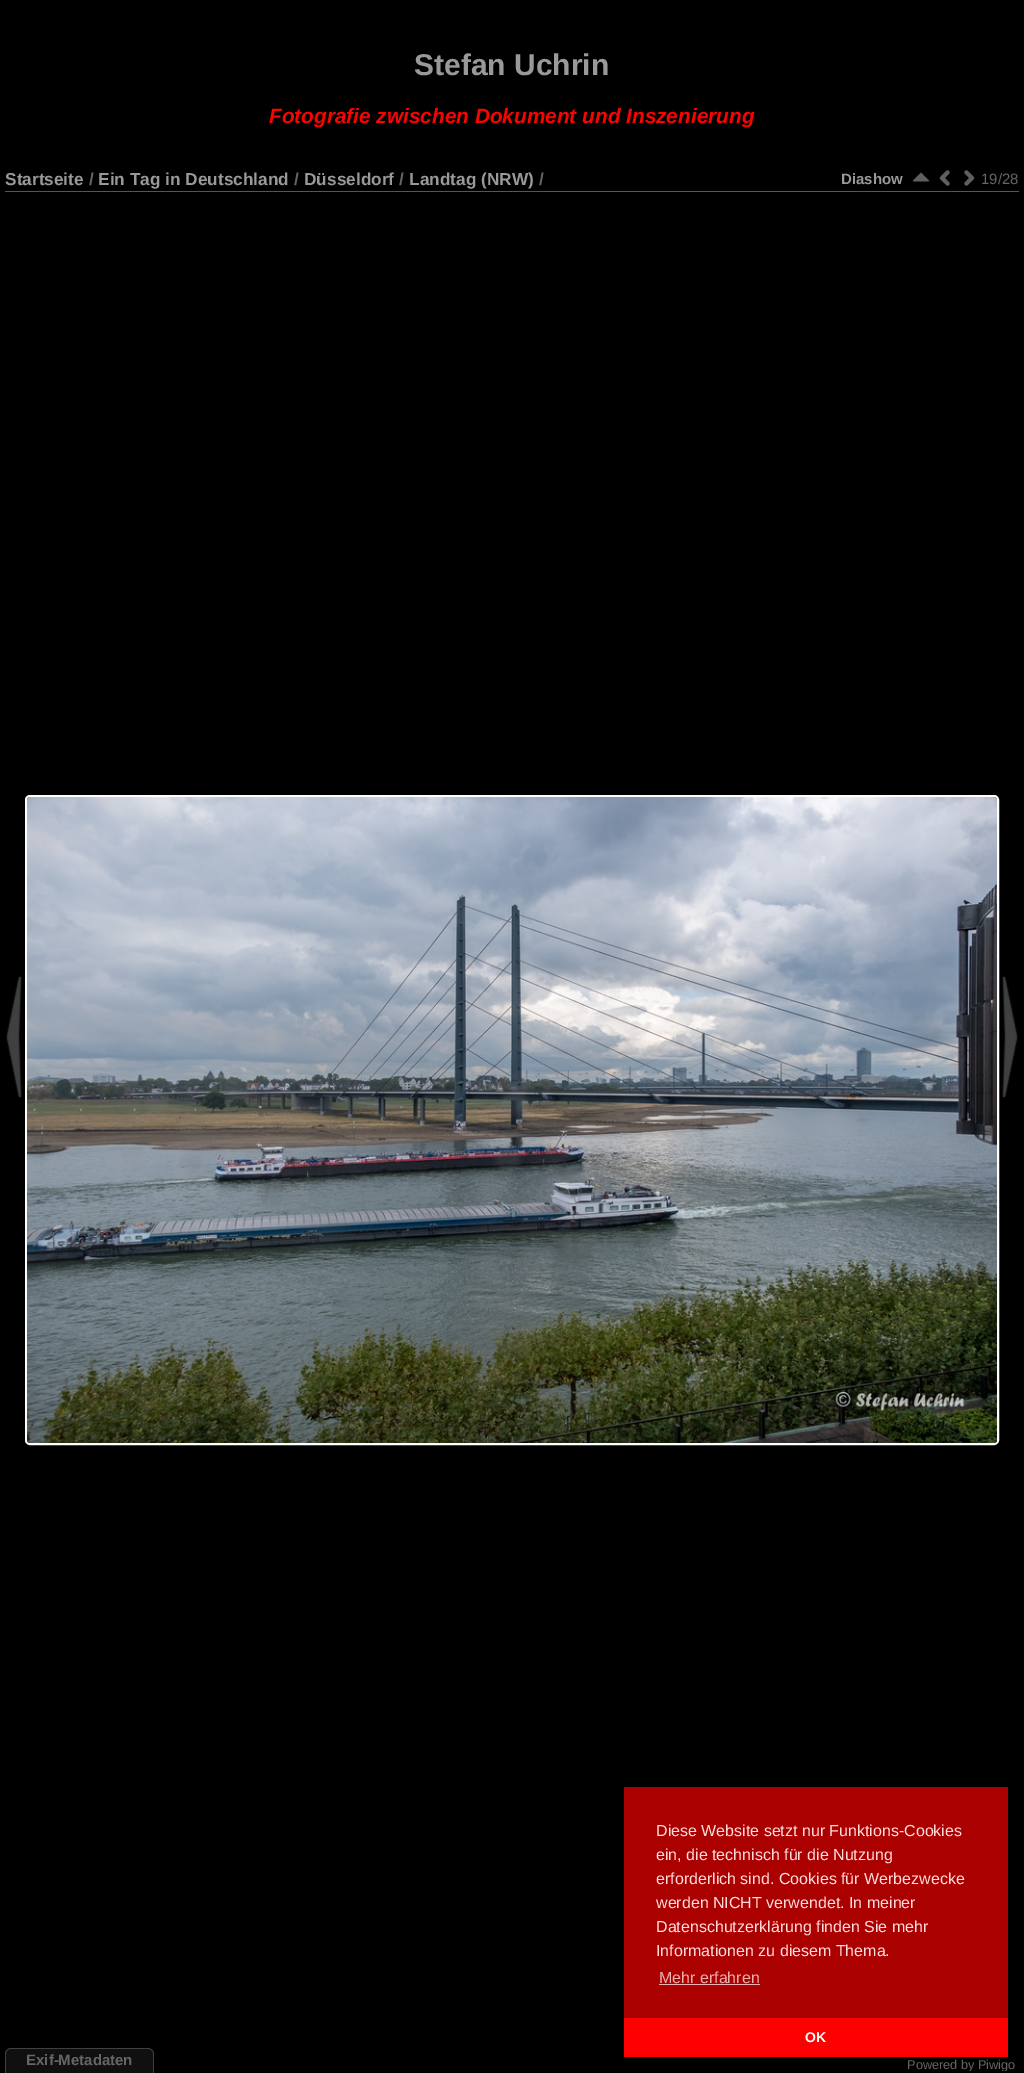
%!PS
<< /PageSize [1024 2073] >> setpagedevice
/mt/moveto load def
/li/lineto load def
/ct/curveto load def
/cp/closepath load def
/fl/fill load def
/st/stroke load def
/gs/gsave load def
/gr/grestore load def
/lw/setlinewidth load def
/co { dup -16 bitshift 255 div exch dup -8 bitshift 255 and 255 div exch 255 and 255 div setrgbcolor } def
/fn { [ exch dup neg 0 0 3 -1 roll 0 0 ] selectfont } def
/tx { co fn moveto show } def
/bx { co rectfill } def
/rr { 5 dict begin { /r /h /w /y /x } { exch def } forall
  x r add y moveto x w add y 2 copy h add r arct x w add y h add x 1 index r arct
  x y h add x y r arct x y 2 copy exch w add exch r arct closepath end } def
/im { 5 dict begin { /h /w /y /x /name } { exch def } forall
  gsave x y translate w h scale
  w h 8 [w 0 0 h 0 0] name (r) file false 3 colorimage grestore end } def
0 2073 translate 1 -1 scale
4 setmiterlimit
0 0 1024 2073 16#000000 bx
5 191 1014 1 16#555555 bx
(media/1.raw) 912 172 18 10 im
(media/2.raw) 939 170 11 16 im
(media/3.raw) 964 170 11 16 im
(media/4.raw) 6 976 16 122 im
16#FFFFFF co
2 lw
26 796 972 648 4 rr st
(media/5.raw) 27 797 970 646 im
(media/6.raw) 1002 976 16 122 im
16#101010 co
11 2049 mt 148 2049 li 151 2049 153 2051 153 2054 ct 153 2073 li 6 2073 li 6 2054 li 6 2051 8 2049 11 2049 ct cp fl
16#404040 co
11 2048 mt 148 2048 li 151 2048 154 2051 154 2054 ct 154 2073 li 5 2073 li 5 2054 li 5 2051 8 2048 11 2048 ct cp 11 2049 mt 148 2049 li 151 2049 153 2051 153 2054 ct 153 2073 li 6 2073 li 6 2054 li 6 2051 8 2049 11 2049 ct cp eofill
624 1787 384 231 16#AA0000 bx
659 1984 101 1 16#EEB1B1 bx
624 2018 384 39 16#FF0000 bx
(Stefan Uchrin) 414 75 /LiberationSans-Bold 30 16#999999 tx
(Fotografie zwischen Dokument und Inszenierung) 269 123 /LiberationSans-BoldItalic 20.8 16#FF0000 tx
(Startseite) 5 185 /LiberationSans-Bold 17.25 16#999999 tx
(/) 89 185 /LiberationSans-Bold 17.25 16#666666 tx
(Ein Tag in Deutschland) 98 185 /LiberationSans-Bold 17.25 16#999999 tx
(/) 294 185 /LiberationSans-Bold 17.25 16#666666 tx
(Düsseldorf) 304 185 /LiberationSans-Bold 17.25 16#999999 tx
(/) 399 185 /LiberationSans-Bold 17.25 16#666666 tx
(Landtag \(NRW\)) 409 185 /LiberationSans-Bold 17.25 16#999999 tx
(/) 539 185 /LiberationSans-Bold 17.25 16#666666 tx
(Diashow) 841 184 /LiberationSans-Bold 15 16#999999 tx
(19/28) 981 184 /LiberationSans-Regular 15 16#666666 tx
(Exif-Metadaten) 26 2065 /LiberationSans-Bold 15 16#666666 tx
gs
907 2059 108 12 rectclip
(Powered by Piwigo) 907 2069 /LiberationSans-Regular 12.75 16#666666 tx
gr
(Diese Website setzt nur Funktions-Cookies) 656 1836 /LiberationSans-Regular 16 16#FFDDDD tx
(ein, die technisch für die Nutzung) 656 1860 /LiberationSans-Regular 16 16#FFDDDD tx
(erforderlich sind. Cookies für Werbezwecke) 656 1884 /LiberationSans-Regular 16 16#FFDDDD tx
(werden NICHT verwendet. In meiner) 656 1908 /LiberationSans-Regular 16 16#FFDDDD tx
(Datenschutzerklärung finden Sie mehr) 656 1932 /LiberationSans-Regular 16 16#FFDDDD tx
(Informationen zu diesem Thema.) 656 1956 /LiberationSans-Regular 16 16#FFDDDD tx
(Mehr erfahren) 659 1983 /LiberationSans-Regular 16 16#EEB1B1 tx
(OK) 805 2042 /LiberationSans-Bold 14 16#FFFFFF tx
showpage
